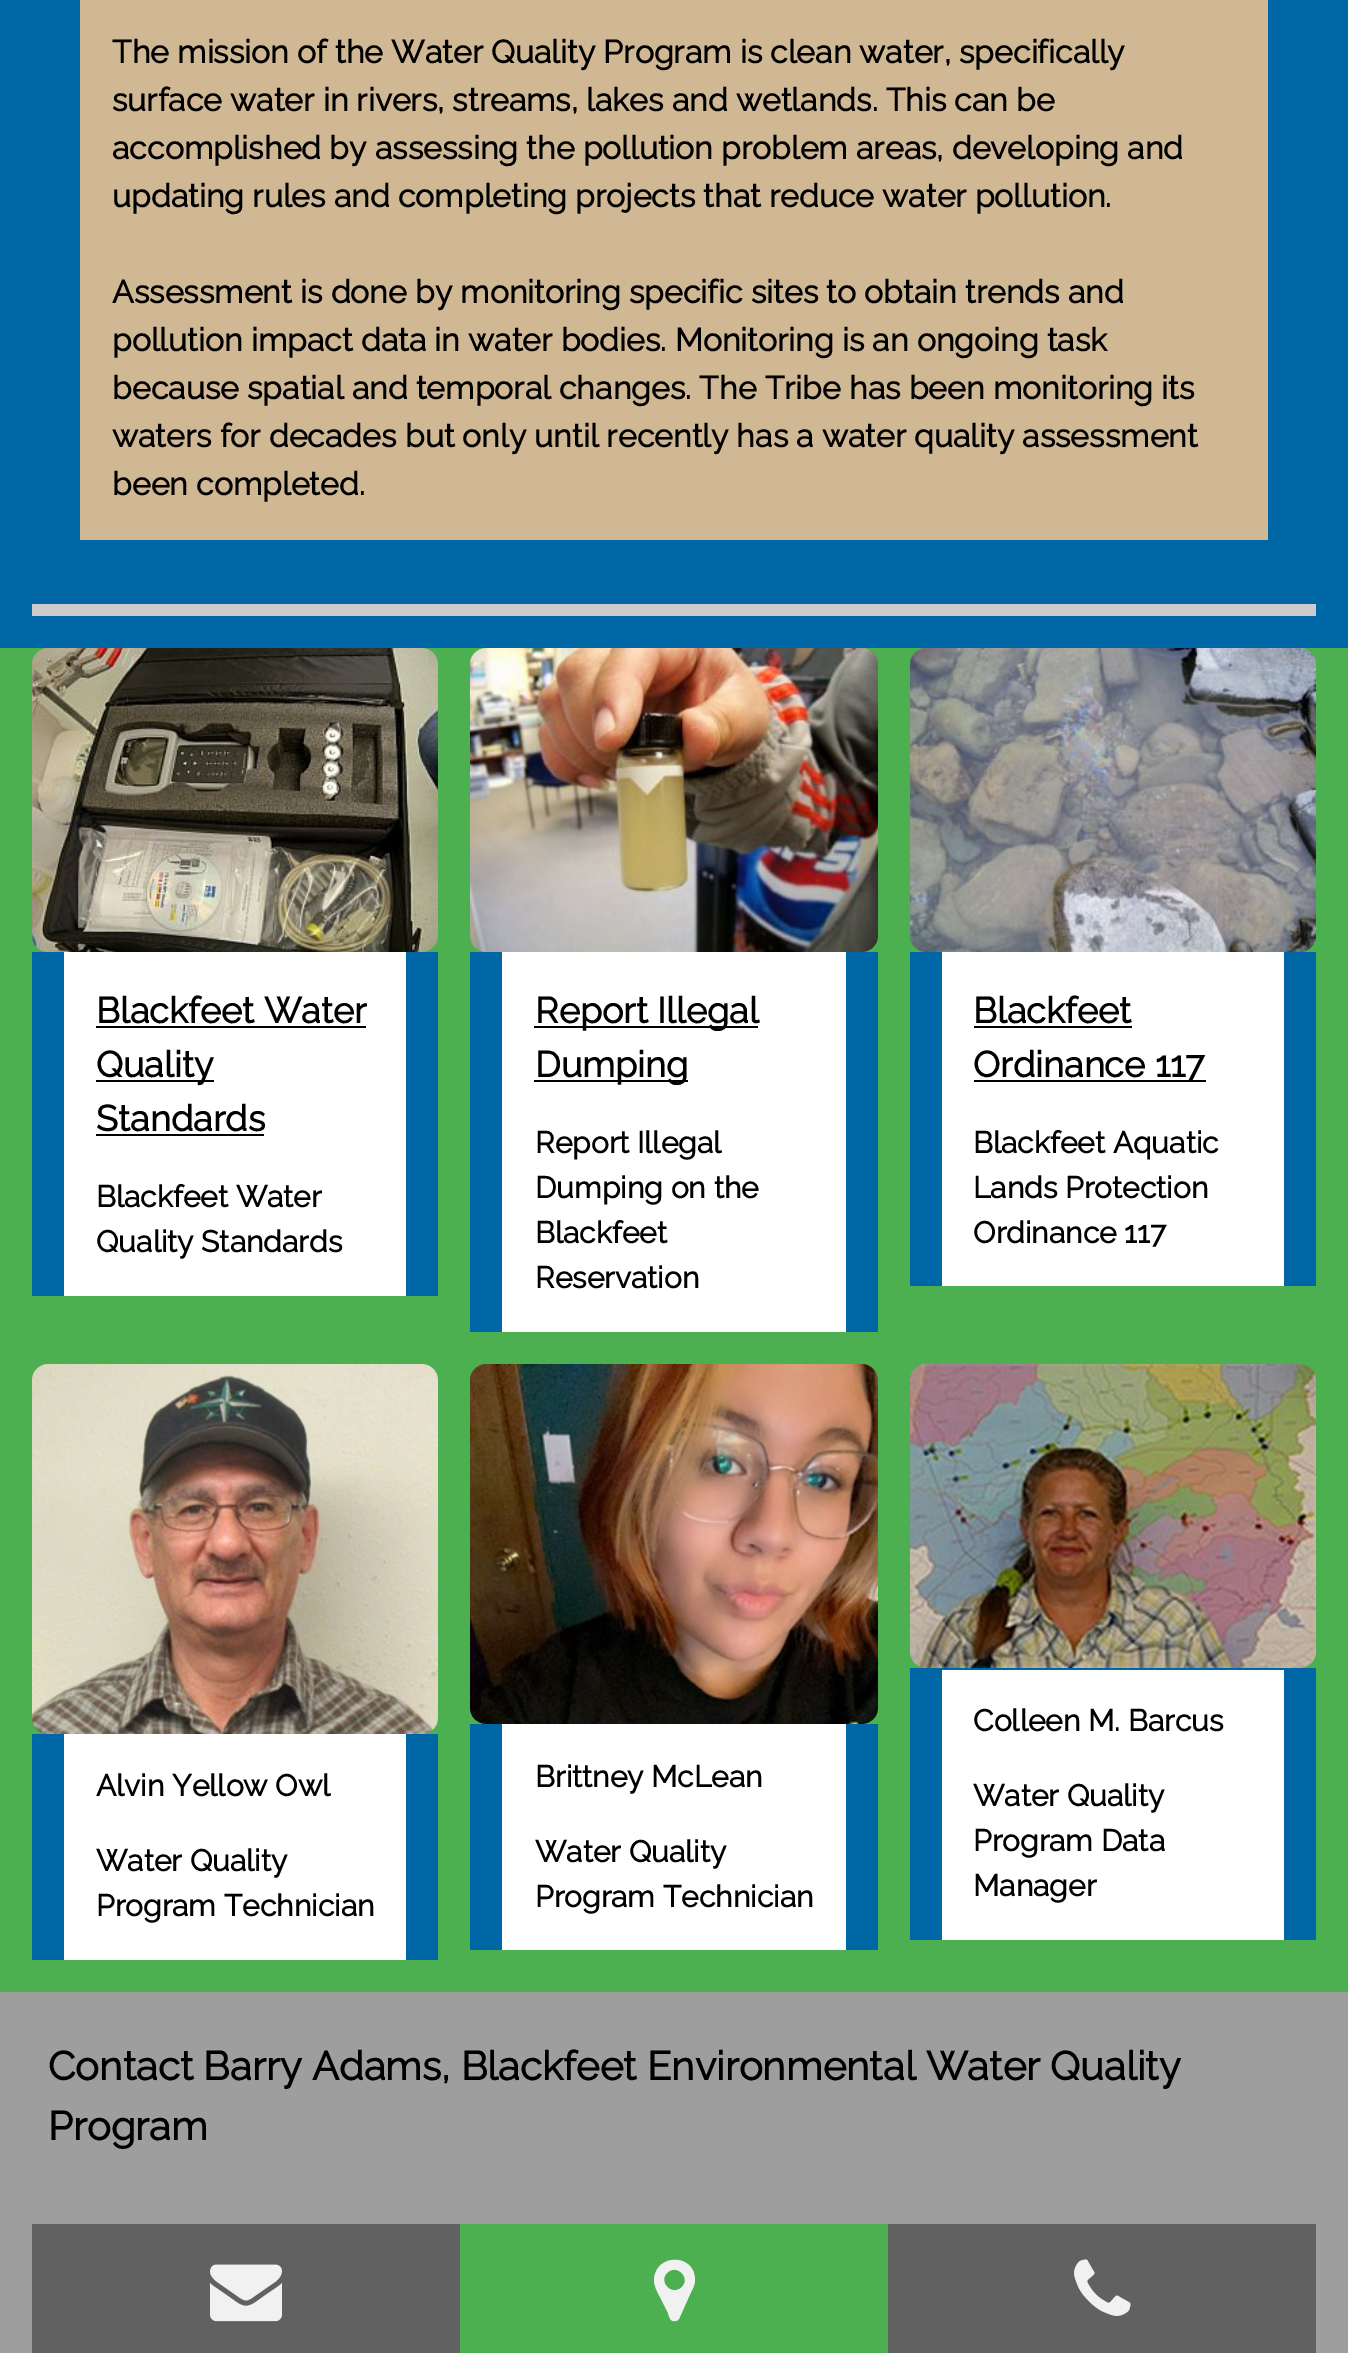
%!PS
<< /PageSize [1348 2353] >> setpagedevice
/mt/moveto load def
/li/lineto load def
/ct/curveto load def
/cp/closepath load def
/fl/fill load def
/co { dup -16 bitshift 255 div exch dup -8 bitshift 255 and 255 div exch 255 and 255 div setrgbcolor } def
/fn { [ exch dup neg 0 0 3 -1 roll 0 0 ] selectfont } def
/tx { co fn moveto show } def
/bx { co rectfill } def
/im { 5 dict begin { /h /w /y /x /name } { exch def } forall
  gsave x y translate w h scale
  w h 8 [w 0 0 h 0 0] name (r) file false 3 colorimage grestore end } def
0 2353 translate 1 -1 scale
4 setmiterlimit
0 0 1348 2353 16#4CAF50 bx
0 0 1348 648 16#0067A7 bx
80 0 1188 540 16#D1B894 bx
32 604 1284 12 16#CCCCCC bx
(media/1.raw) 32 648 406 304 im
32 952 406 344 16#0067A7 bx
64 952 342 344 16#FFFFFF bx
96 1026 270 2 16#000000 bx
96 1080 118 2 16#000000 bx
96 1134 168 2 16#000000 bx
(media/2.raw) 470 648 408 304 im
470 952 408 380 16#0067A7 bx
502 952 344 380 16#FFFFFF bx
534 1026 224 2 16#000000 bx
534 1080 154 2 16#000000 bx
(media/3.raw) 910 648 406 304 im
910 952 406 334 16#0067A7 bx
942 952 342 334 16#FFFFFF bx
974 1026 158 2 16#000000 bx
974 1080 232 2 16#000000 bx
(media/4.raw) 32 1364 406 370 im
32 1734 406 226 16#0067A7 bx
64 1734 342 226 16#FFFFFF bx
(media/5.raw) 470 1364 408 360 im
470 1724 408 226 16#0067A7 bx
502 1724 344 226 16#FFFFFF bx
(media/6.raw) 910 1364 406 304 im
910 1668 406 272 16#0067A7 bx
942 1670 342 270 16#FFFFFF bx
0 1992 1348 361 16#9E9E9E bx
32 2224 428 129 16#616161 bx
(media/7.raw) 210 2264 72 58 im
460 2224 428 129 16#4CAF50 bx
16#F1F1F1 co
682 2287 mt 691 2278 677 2263 667 2273 ct 658 2282 672 2297 682 2287 ct cp 695 2280 mt 695 2285 693 2288 691 2292 ct 679 2319 li 678 2320 677 2321 675 2321 ct 670 2322 669 2316 668 2313 ct 663 2303 li 660 2296 654 2288 654 2280 ct 655 2253 695 2253 695 2280 ct cp fl
888 2224 428 129 16#616161 bx
(media/8.raw) 1074 2259 57 57 im
(The mission of the Water Quality Program is clean water, specifically) 112 63 /Raleway-Bold 32 16#000000 tx
(surface water in rivers, streams, lakes and wetlands. This can be) 112 111 /Raleway-Bold 32 16#000000 tx
(accomplished by assessing the pollution problem areas, developing and) 112 159 /Raleway-Bold 32 16#000000 tx
(updating rules and completing projects that reduce water pollution.) 112 207 /Raleway-Bold 32 16#000000 tx
(Assessment is done by monitoring specific sites to obtain trends and) 112 303 /Raleway-Bold 32 16#000000 tx
(pollution impact data in water bodies. Monitoring is an ongoing task) 112 351 /Raleway-Bold 32 16#000000 tx
(because spatial and temporal changes. The Tribe has been monitoring its) 112 399 /Raleway-Bold 32 16#000000 tx
(waters for decades but only until recently has a water quality assessment) 112 447 /Raleway-Bold 32 16#000000 tx
(been completed.) 112 495 /Raleway-Bold 32 16#000000 tx
(Blackfeet Water) 96 1023 /Raleway-Bold 36 16#000000 tx
(Quality) 96 1077 /Raleway-Bold 36 16#000000 tx
(Standards) 96 1131 /Raleway-Bold 36 16#000000 tx
(Blackfeet Water) 96 1207 /Raleway-Bold 30 16#000000 tx
(Quality Standards) 96 1252 /Raleway-Bold 30 16#000000 tx
(Report Illegal) 535 1023 /Raleway-Bold 36 16#000000 tx
(Dumping) 535 1077 /Raleway-Bold 36 16#000000 tx
(Report Illegal) 535 1153 /Raleway-Bold 30 16#000000 tx
(Dumping on the) 535 1198 /Raleway-Bold 30 16#000000 tx
(Blackfeet) 535 1243 /Raleway-Bold 30 16#000000 tx
(Reservation) 535 1288 /Raleway-Bold 30 16#000000 tx
(Blackfeet) 973 1023 /Raleway-Bold 36 16#000000 tx
(Ordinance 117) 973 1077 /Raleway-Bold 36 16#000000 tx
(Blackfeet Aquatic) 973 1153 /Raleway-Bold 30 16#000000 tx
(Lands Protection) 973 1198 /Raleway-Bold 30 16#000000 tx
(Ordinance 117) 973 1243 /Raleway-Bold 30 16#000000 tx
(Alvin Yellow Owl) 96 1796 /Raleway-Bold 30 16#000000 tx
(Water Quality) 96 1871 /Raleway-Bold 30 16#000000 tx
(Program Technician) 96 1916 /Raleway-Bold 30 16#000000 tx
(Brittney McLean) 535 1787 /Raleway-Bold 30 16#000000 tx
(Water Quality) 535 1862 /Raleway-Bold 30 16#000000 tx
(Program Technician) 535 1907 /Raleway-Bold 30 16#000000 tx
(Colleen M. Barcus) 973 1731 /Raleway-Bold 30 16#000000 tx
(Water Quality) 973 1806 /Raleway-Bold 30 16#000000 tx
(Program Data) 973 1851 /Raleway-Bold 30 16#000000 tx
(Manager) 973 1896 /Raleway-Bold 30 16#000000 tx
(Contact Barry Adams, Blackfeet Environmental Water Quality) 48 2080 /Raleway-Bold 40 16#000000 tx
(Program) 48 2140 /Raleway-Bold 40 16#000000 tx
showpage
